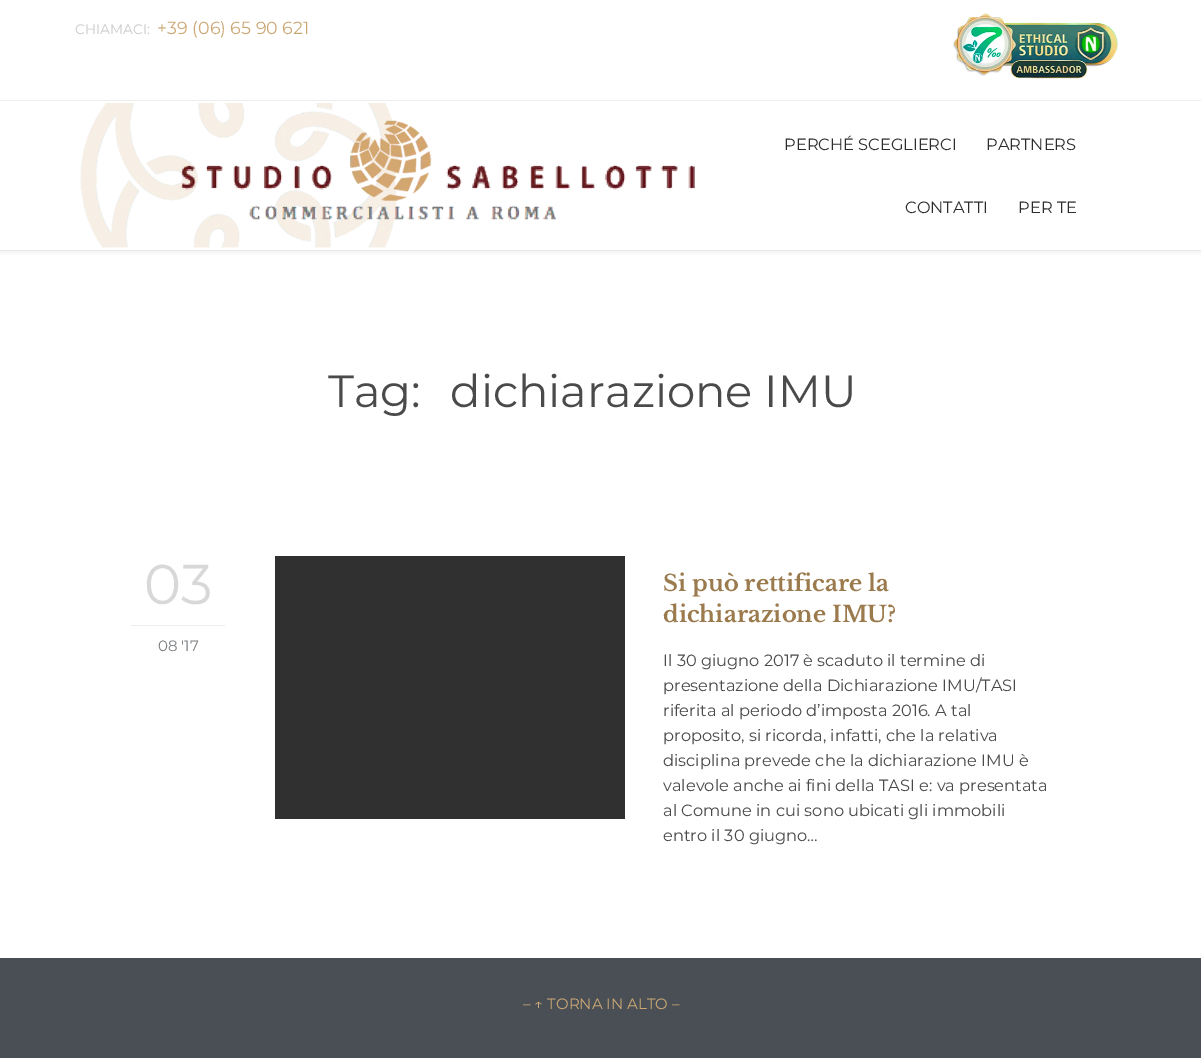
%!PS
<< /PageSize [1201 1058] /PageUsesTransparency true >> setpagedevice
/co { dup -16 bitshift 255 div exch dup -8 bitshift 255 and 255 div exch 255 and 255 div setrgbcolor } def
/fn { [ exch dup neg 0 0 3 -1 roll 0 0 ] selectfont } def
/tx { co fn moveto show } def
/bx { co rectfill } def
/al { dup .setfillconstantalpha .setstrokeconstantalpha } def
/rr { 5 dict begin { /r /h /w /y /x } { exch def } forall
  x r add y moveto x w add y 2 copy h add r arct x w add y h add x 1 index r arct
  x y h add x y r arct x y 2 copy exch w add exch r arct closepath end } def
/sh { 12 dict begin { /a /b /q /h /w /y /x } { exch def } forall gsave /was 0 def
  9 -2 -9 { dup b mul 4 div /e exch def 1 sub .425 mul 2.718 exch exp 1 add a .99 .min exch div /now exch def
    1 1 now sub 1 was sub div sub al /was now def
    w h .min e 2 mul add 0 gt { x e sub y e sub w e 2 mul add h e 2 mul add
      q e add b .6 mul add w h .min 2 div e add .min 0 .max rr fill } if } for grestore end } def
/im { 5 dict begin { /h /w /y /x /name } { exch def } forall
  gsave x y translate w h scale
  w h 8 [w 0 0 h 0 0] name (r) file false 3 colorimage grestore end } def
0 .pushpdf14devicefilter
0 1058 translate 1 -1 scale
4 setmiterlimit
0 0 1201 1058 16#4A4F55 bx
0 251 1201 707 16#FFFFFF bx
16#000000 co
0 3 1201 251 0 1 .04 sh
0 0 1201 250 16#FFFFFF bx
0 250 1201 1 16#E8E8E8 bx
0 100 1201 1 16#EDEDED bx
(media/1.raw) 953 13 165 66 im
(media/2.raw) 80 103 615 145 im
131 625 94 1 16#EDEDED bx
275 556 350 263 16#303030 bx
(CHIAMACI:) 75 34 /Montserrat-Regular 13.75 16#CBC9C9 tx
(+39 \(06\) 65 90 621) 157 34 /Montserrat-Regular 17.5 16#CCA876 tx
(PERCHÉ SCEGLIERCI) 784 150 /Montserrat-Regular 16.25 16#2C2C2C tx
(PARTNERS) 986 150 /Montserrat-Regular 16.25 16#2C2C2C tx
(CONTATTI) 905 213 /Montserrat-Regular 16.25 16#2C2C2C tx
(PER TE) 1018 213 /Montserrat-Regular 16.25 16#2C2C2C tx
(Tag:) 328 407 /Montserrat-Regular 45 16#4A4A4A tx
(dichiarazione IMU) 450 407 /Montserrat-Regular 45 16#4A4A4A tx
(03) 144 604 /Montserrat-Regular 56 16#D8D8D8 tx
(08 '17) 158 651 /Montserrat-Regular 15 16#7C7F82 tx
(Si può rettificare la) 663 591 /LibreBaskerville-Bold 22.5 16#9B7B4D tx
(dichiarazione IMU?) 663 622 /LibreBaskerville-Bold 22.5 16#9B7B4D tx
(Il 30 giugno 2017 è scaduto il termine di) 663 666 /Montserrat-Regular 16.25 16#4A4A4A tx
(presentazione della Dichiarazione IMU/TASI) 663 691 /Montserrat-Regular 16.25 16#4A4A4A tx
(riferita al periodo d’imposta 2016. A tal) 663 716 /Montserrat-Regular 16.25 16#4A4A4A tx
(proposito, si ricorda, infatti, che la relativa) 663 741 /Montserrat-Regular 16.25 16#4A4A4A tx
(disciplina prevede che la dichiarazione IMU è) 663 766 /Montserrat-Regular 16.25 16#4A4A4A tx
(valevole anche ai fini della TASI e: va presentata) 663 791 /Montserrat-Regular 16.25 16#4A4A4A tx
(al Comune in cui sono ubicati gli immobili) 663 816 /Montserrat-Regular 16.25 16#4A4A4A tx
(entro il 30 giugno…) 663 841 /Montserrat-Regular 16.25 16#4A4A4A tx
(– ↑ TORNA IN ALTO –) 523 1009 /Montserrat-Regular 15 16#CCA876 tx
.poppdf14devicefilter showpage
